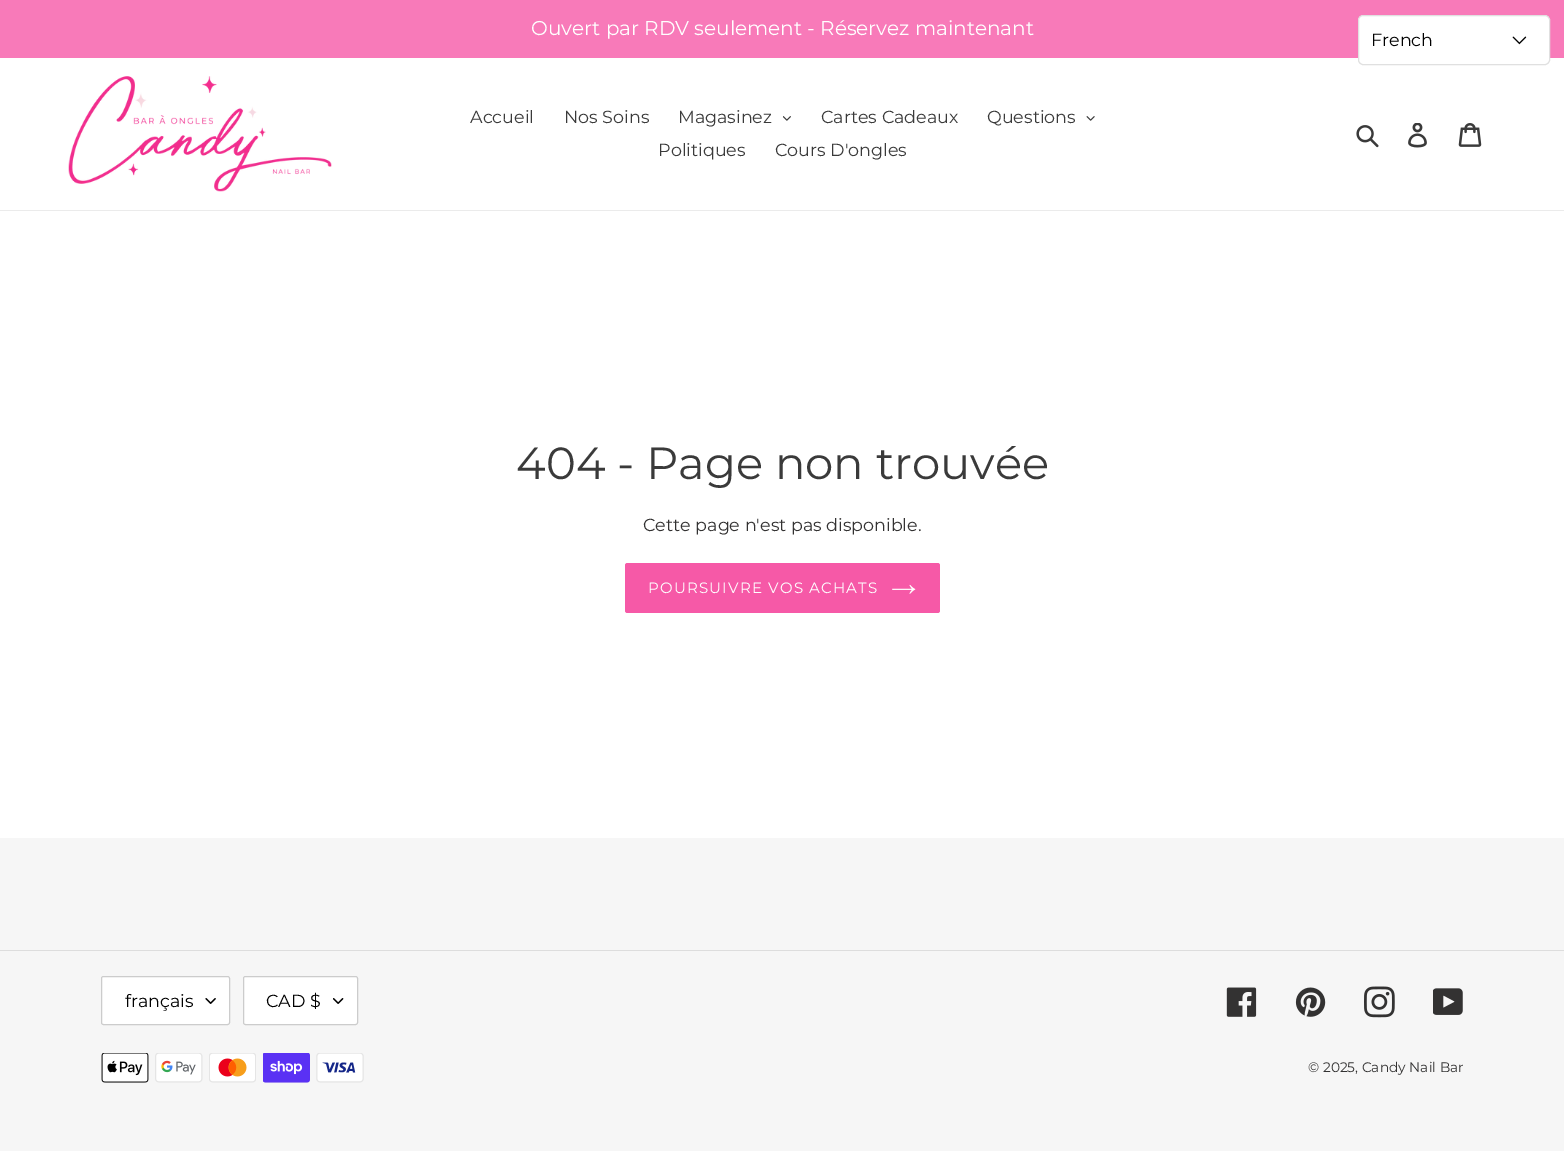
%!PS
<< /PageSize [1564 1174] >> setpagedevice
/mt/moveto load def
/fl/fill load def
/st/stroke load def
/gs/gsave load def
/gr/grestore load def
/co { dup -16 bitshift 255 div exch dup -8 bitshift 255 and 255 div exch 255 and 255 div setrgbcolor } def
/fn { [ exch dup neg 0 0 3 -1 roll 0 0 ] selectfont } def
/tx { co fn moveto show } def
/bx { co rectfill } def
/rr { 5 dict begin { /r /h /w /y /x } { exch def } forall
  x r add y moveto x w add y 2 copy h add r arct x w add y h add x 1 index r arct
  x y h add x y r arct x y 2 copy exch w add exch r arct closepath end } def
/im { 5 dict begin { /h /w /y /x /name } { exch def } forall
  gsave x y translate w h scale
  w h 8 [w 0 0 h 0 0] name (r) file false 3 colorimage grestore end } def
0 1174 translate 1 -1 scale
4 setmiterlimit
0 0 1564 1174 16#FFFFFF bx
0 0 1564 58 16#F87AB9 bx
0 210 1564 1 16#EBEBEB bx
(media/1.raw) 68 76 264 116 im
(media/2.raw) 783 116 8 5 im
(media/3.raw) 1086 116 9 5 im
(media/4.raw) 1356 125 23 23 im
(media/5.raw) 1408 123 19 25 im
(media/6.raw) 1458 123 24 24 im
16#FFFFFF co
1358.5 15.5 191 49 4.5 rr gs fl gr
16#E0E0E0 co
st
(media/7.raw) 1512 36 15 9 im
16#F659A7 co
625 563 315 50 2.5 rr fl
(media/8.raw) 892 584 24 10 im
0 838 1564 313 16#F6F6F6 bx
0 950 1564 1 16#DDDDDD bx
16#FFFFFF co
101 976 129 49 2.5 rr fl
(media/9.raw) 205 998 11 6 im
16#CCCCCC co
101.5 976.5 128 48 2 rr st
16#FFFFFF co
243 976 115 49 2.5 rr fl
(media/10.raw) 333 998 11 6 im
16#CCCCCC co
243.5 976.5 114 48 2 rr st
(media/11.raw) 1226 987 31 30 im
(media/12.raw) 1295 987 31 30 im
(media/13.raw) 1364 986 31 32 im
(media/14.raw) 1433 988 30 27 im
(media/15.raw) 101 1053 48 30 im
(media/16.raw) 155 1053 48 30 im
(media/17.raw) 209 1053 47 30 im
(media/18.raw) 263 1053 47 30 im
(media/19.raw) 316 1053 48 30 im
(Ouvert par RDV seulement - Réservez maintenant) 531 35 /Montserrat-Regular 20 16#FFFFFF tx
(Accueil) 470 123 /Montserrat-Regular 17.5 16#3A3A3A tx
(Nos Soins) 564 123 /Montserrat-Regular 17.5 16#3A3A3A tx
(Magasinez) 678 123 /Montserrat-Regular 17.5 16#3A3A3A tx
(Cartes Cadeaux) 821 123 /Montserrat-Regular 17.5 16#3A3A3A tx
(Questions) 987 123 /Montserrat-Regular 17.5 16#3A3A3A tx
(Politiques) 658 156 /Montserrat-Regular 17.5 16#3A3A3A tx
(Cours D'ongles) 775 156 /Montserrat-Regular 17.5 16#3A3A3A tx
(French) 1371 46 /Montserrat-Regular 17.5 16#000000 tx
(404 - Page non trouvée) 516 479 /Montserrat-Regular 45 16#3A3A3A tx
(Cette page n'est pas disponible.) 643 531 /Montserrat-Regular 17.5 16#333232 tx
/Montserrat-Regular 15 fn
16#FFFFFF co
648 593 mt 1.2 0 (POURSUIVRE VOS ACHATS) ashow
(français) 125 1007 /Montserrat-Regular 17.5 16#000000 tx
(CAD $) 266 1007 /Montserrat-Regular 17.5 16#000000 tx
(© 2025, Candy Nail Bar) 1308 1072 /Montserrat-Regular 13.75 16#333232 tx
showpage
